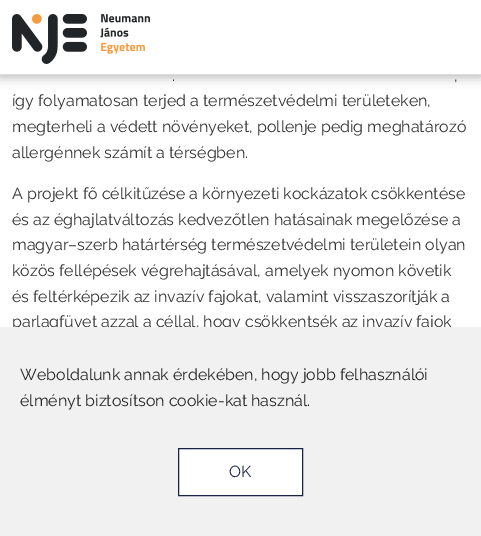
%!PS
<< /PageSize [481 536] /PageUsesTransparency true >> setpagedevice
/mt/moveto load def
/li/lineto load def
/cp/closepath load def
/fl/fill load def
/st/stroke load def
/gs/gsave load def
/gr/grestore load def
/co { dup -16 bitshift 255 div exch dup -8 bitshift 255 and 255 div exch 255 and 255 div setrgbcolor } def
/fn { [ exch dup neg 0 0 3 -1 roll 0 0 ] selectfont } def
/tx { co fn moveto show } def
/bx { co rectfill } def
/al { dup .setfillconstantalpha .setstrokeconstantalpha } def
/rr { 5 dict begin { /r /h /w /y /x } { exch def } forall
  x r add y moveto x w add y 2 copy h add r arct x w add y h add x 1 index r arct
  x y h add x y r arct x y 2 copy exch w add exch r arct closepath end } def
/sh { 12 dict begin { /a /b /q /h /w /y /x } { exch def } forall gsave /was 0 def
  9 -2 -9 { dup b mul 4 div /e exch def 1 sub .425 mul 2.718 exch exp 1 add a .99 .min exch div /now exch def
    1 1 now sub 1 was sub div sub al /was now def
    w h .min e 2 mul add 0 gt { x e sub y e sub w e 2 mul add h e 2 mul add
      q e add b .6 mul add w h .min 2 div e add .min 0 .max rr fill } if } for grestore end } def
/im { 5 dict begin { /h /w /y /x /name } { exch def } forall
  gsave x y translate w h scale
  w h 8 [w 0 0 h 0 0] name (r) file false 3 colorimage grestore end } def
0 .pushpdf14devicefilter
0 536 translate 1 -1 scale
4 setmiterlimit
0 0 481 536 16#FFFFFF bx
16#000000 co
0 2 481 75 0 6 .3 sh
0 0 481 74 16#FFFFFF bx
0 74 481 1 16#DDDDDD bx
(media/1.raw) 12 14 138 50 im
(.) 172 81 /Raleway-Regular 16 16#323232 tx
(,) 454 81 /Raleway-Regular 16 16#323232 tx
(így folyamatosan terjed a természetvédelmi területeken,) 12 106 /Raleway-Regular 16 16#323232 tx
(megterheli a védett növényeket, pollenje pedig meghatározó) 12 132 /Raleway-Regular 16 16#323232 tx
(allergénnek számít a térségben.) 12 158 /Raleway-Regular 16 16#323232 tx
(A projekt fő célkitűzése a környezeti kockázatok csökkentése) 12 199 /Raleway-Regular 16 16#323232 tx
(és az éghajlatváltozás kedvezőtlen hatásainak megelőzése a) 12 225 /Raleway-Regular 16 16#323232 tx
(magyar–szerb határtérség természetvédelmi területein olyan) 12 250 /Raleway-Regular 16 16#323232 tx
(közös fellépések végrehajtásával, amelyek nyomon követik) 12 276 /Raleway-Regular 16 16#323232 tx
(és feltérképezik az invazív fajokat, valamint visszaszorítják a) 12 302 /Raleway-Regular 16 16#323232 tx
(parlagfüvet azzal a céllal, hogy csökkentsék az invazív fajok) 12 327 /Raleway-Regular 16 16#323232 tx
0 327 481 209 16#F1F1F1 bx
(Weboldalunk annak érdekében, hogy jobb felhasználói) 20 380 /Raleway-Regular 16 16#232323 tx
(élményt biztosítson cookie-kat használ.) 20 406 /Raleway-Regular 16 16#232323 tx
16#FFFFFF co
178.5 448.5 mt 302.5 448.5 li 302.5 495.5 li 178.5 495.5 li cp gs fl gr
16#192144 co
st
(OK) 229 477 /Raleway-Regular 16 16#192144 tx
.poppdf14devicefilter showpage
